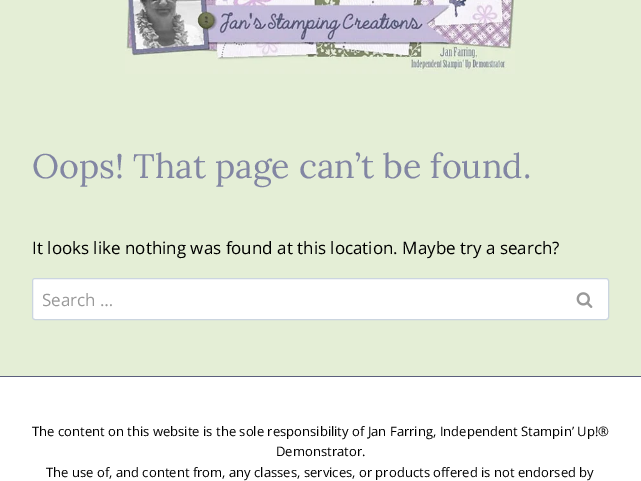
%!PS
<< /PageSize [641 481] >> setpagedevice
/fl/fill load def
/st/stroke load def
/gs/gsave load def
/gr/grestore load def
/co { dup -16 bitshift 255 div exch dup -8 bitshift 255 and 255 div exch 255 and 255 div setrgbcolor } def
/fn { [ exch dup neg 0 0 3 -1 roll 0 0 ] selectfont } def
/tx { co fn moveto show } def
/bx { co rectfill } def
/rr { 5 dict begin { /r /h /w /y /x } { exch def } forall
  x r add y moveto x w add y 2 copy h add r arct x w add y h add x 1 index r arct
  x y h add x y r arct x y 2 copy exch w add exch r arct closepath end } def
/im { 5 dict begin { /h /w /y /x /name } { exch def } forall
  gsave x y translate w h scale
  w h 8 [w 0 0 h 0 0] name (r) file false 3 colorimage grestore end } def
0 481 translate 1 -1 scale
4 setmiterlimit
0 0 641 481 16#FFFFFF bx
0 0 641 376 16#E4EED6 bx
(media/1.raw) 125 0 390 74 im
16#FFFFFF co
32.5 278.5 576 41 2.5 rr gs fl gr
16#CBD5E0 co
st
(media/2.raw) 576 292 17 16 im
0 376 641 1 16#5B5F7C bx
(Oops! That page can’t be found.) 32 178 /Lora-Regular 34 16#8286A3 tx
(It looks like nothing was found at this location. Maybe try a search?) 32 254 /OpenSans-Regular 17 16#000000 tx
(Search …) 42 306 /OpenSans-Regular 17 16#999999 tx
(The content on this website is the sole responsibility of Jan Farring, Independent Stampin’ Up!®) 32 436 /OpenSans-Regular 13.05 16#000000 tx
(Demonstrator.) 276 456 /OpenSans-Regular 13.05 16#000000 tx
(The use of, and content from, any classes, services, or products offered is not endorsed by) 46 477 /OpenSans-Regular 13.05 16#000000 tx
showpage
